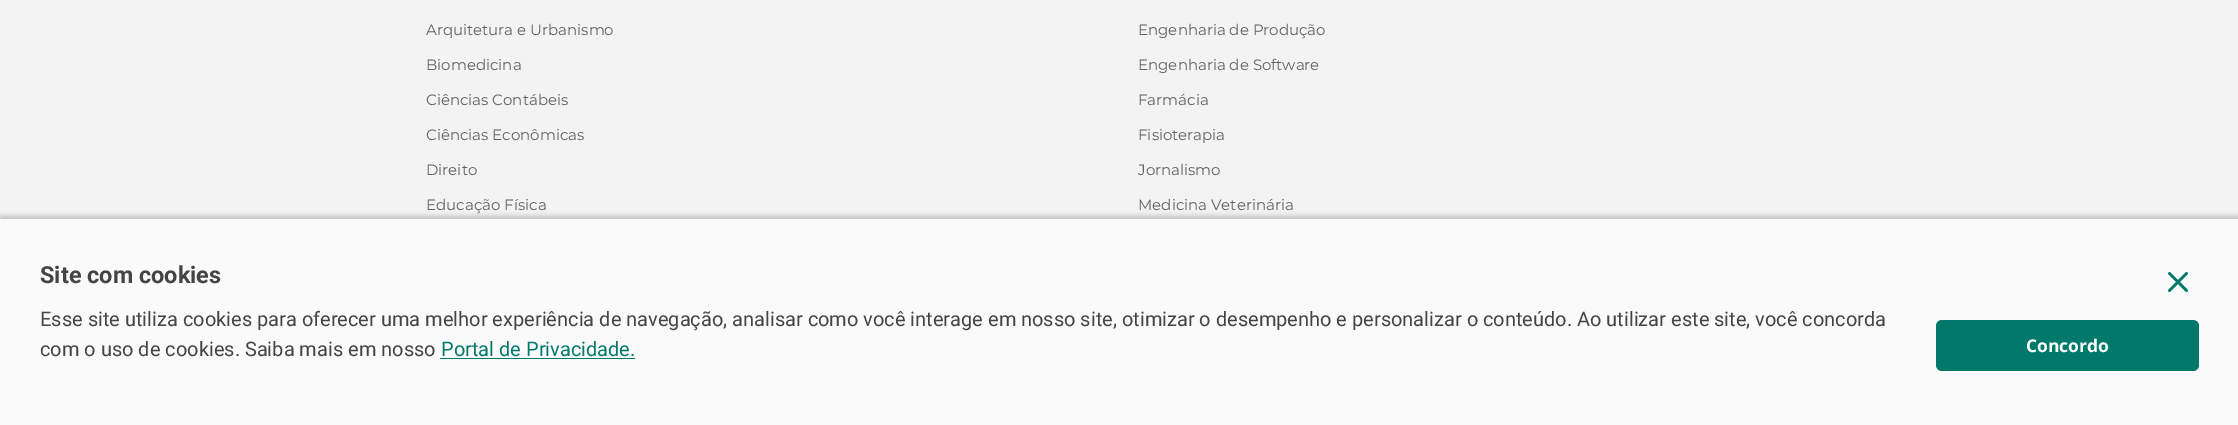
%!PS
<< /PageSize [2238 425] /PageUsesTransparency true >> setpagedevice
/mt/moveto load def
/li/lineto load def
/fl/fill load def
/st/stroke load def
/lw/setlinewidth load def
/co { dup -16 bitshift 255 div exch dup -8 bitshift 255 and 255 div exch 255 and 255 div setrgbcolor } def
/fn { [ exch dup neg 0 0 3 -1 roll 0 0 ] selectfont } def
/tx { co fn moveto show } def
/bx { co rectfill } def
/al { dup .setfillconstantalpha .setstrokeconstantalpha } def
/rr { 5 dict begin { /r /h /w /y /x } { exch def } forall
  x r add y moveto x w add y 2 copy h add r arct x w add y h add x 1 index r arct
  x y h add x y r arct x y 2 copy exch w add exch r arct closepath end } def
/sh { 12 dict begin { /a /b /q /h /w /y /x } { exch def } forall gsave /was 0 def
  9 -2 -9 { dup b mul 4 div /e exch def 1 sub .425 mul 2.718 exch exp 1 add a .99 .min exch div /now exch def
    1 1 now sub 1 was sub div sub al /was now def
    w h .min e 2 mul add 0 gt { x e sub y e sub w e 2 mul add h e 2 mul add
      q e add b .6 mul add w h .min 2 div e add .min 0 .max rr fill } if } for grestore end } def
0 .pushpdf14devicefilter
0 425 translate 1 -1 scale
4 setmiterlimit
0 0 2238 425 16#F3F3F3 bx
16#000000 co
0 216 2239 207 0 2.5 .2 sh
0 219 2238 206 16#FAFAFA bx
16#00796B co
2.8 lw
1 setlinecap
2186.5 273.5 mt 2169.5 290.5 li 2169.5 273.5 mt 2186.5 290.5 li st
440 358 195 1 16#00796B bx
1936 320 263 51 6 rr fl
(Arquitetura e Urbanismo) 426 35 /Montserrat-Regular 15 16#5F625F tx
(Biomedicina) 426 70 /Montserrat-Regular 15 16#5F625F tx
(Ciências Contábeis) 426 105 /Montserrat-Regular 15 16#5F625F tx
(Ciências Econômicas) 426 140 /Montserrat-Regular 15 16#5F625F tx
(Direito) 426 175 /Montserrat-Regular 15 16#5F625F tx
(Educação Física) 426 210 /Montserrat-Regular 15 16#5F625F tx
(Engenharia de Produção) 1138 35 /Montserrat-Regular 15 16#5F625F tx
(Engenharia de Software) 1138 70 /Montserrat-Regular 15 16#5F625F tx
(Farmácia) 1138 105 /Montserrat-Regular 15 16#5F625F tx
(Fisioterapia) 1138 140 /Montserrat-Regular 15 16#5F625F tx
(Jornalismo) 1138 175 /Montserrat-Regular 15 16#5F625F tx
(Medicina Veterinária) 1138 210 /Montserrat-Regular 15 16#5F625F tx
(Site com cookies) 40 283 /Roboto-Bold 23.5 16#444444 tx
(Esse site utiliza cookies para oferecer uma melhor experiência de navegação, analisar como você interage em nosso site, otimizar o desempenho e personalizar o conteúdo. Ao utilizar este site, você concorda) 40 326 /Roboto-Regular 20 16#444444 tx
(com o uso de cookies. Saiba mais em nosso) 40 356 /Roboto-Regular 20 16#444444 tx
(Portal de Privacidade.) 441 356 /Roboto-Regular 20 16#00796B tx
(Concordo) 2026 352 /OpenSans-Bold 17.5 16#FFFFFF tx
.poppdf14devicefilter showpage
